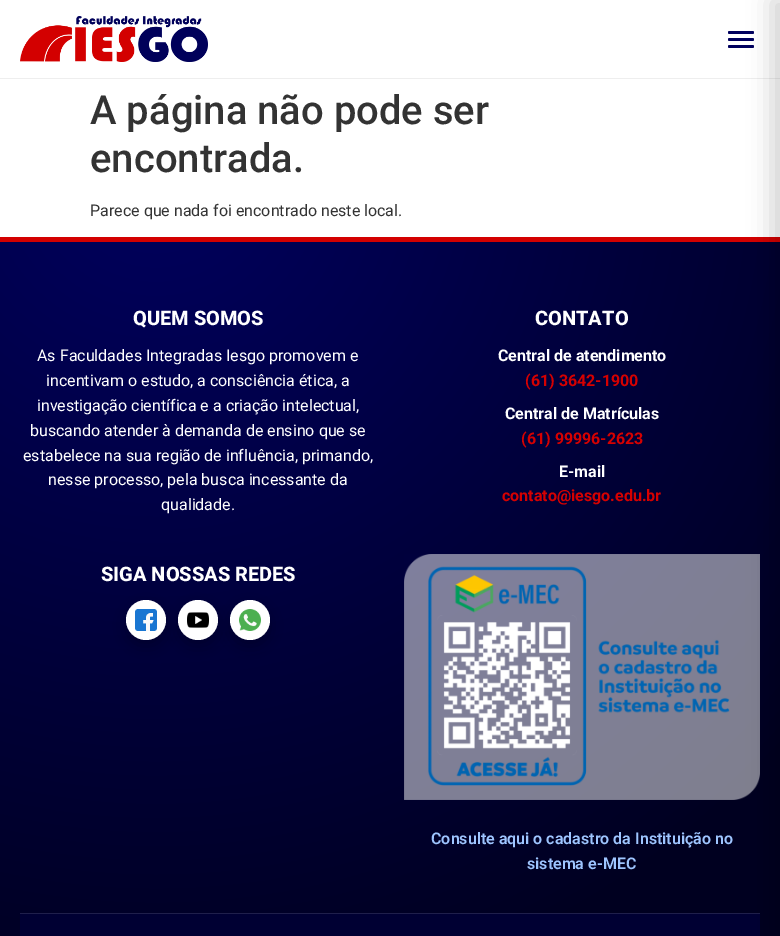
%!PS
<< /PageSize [780 936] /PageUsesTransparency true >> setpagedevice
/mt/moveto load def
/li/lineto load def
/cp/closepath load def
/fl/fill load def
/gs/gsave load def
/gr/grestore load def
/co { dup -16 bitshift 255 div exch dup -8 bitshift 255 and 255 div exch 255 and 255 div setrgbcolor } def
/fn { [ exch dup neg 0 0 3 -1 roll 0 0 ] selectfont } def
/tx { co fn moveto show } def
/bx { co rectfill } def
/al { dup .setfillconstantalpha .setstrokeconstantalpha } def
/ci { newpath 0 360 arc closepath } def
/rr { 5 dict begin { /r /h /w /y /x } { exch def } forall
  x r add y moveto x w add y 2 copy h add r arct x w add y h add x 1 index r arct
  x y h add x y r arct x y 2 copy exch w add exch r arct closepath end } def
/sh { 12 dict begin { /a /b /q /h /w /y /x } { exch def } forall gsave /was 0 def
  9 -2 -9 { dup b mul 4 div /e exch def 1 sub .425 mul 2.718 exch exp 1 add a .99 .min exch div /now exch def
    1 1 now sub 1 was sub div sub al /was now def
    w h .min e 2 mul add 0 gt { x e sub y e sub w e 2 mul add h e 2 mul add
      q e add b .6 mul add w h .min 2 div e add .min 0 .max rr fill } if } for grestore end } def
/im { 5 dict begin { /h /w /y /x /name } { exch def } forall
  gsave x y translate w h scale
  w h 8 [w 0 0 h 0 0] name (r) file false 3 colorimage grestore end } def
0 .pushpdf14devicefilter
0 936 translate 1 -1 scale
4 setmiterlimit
0 0 780 936 16#FFFFFF bx
0 78 780 1 16#EEEEEE bx
16#00005E co
728 31 26 3 1.5 rr fl
728 38 26 3 1.5 rr fl
728 45 26 3 1.5 rr fl
0 237 780 5 16#D30000 bx
gs 0 242 mt 780 242 li 780 936 li 0 936 li cp clip newpath 156 169 translate 1016 1016 scale
<< /ShadingType 3 /ColorSpace /DeviceRGB /Coords [0 0 0 0 0 1] /Extend [true true] /Function << /FunctionType 3 /Domain [0 1] /Functions [<< /FunctionType 2 /Domain [0 1] /C0 [0 0 .369] /C1 [0 0 .125] /N 1 >> << /FunctionType 2 /Domain [0 1] /C0 [0 0 .125] /C1 [0 0 .125] /N 1 >>] /Bounds [.85] /Encode [0 1 0 1] >> >> shfill gr
(media/5.raw) 404 554 356 246 im
20 914 740 22 16#000033 bx
20 913 740 1 16#1F1F4B bx
16#000000 co
772 0 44 936 0 12 .18 sh
(media/1.raw) 20 16 188 46 im
126 606 40 40 20 8 .25 sh
16#FFFFFF co
146 620 20 ci fl
(media/2.raw) 135 609 22 22 im
16#000000 co
178 606 40 40 20 8 .25 sh
16#FFFFFF co
198 620 20 ci fl
(media/3.raw) 187 612 22 16 im
16#000000 co
230 606 40 40 20 8 .25 sh
16#FFFFFF co
250 620 20 ci fl
(media/4.raw) 239 609 22 22 im
(A página não pode ser) 90 124 /Roboto-Medium 40 16#333333 tx
(encontrada.) 90 172 /Roboto-Medium 40 16#333333 tx
(Parece que nada foi encontrado neste local.) 90 216 /Roboto-Regular 16 16#333333 tx
(QUEM SOMOS) 133 325 /Roboto-ExtraBold 20 16#FFFFFF tx
(As Faculdades Integradas Iesgo promovem e) 37 361 /Roboto-Regular 16 16#FFFFFF tx
(incentivam o estudo, a consciência ética, a) 46 386 /Roboto-Regular 16 16#FFFFFF tx
(investigação científica e a criação intelectual,) 37 411 /Roboto-Regular 16 16#FFFFFF tx
(buscando atender à demanda de ensino que se) 30 436 /Roboto-Regular 16 16#FFFFFF tx
(estabelece na sua região de influência, primando,) 23 461 /Roboto-Regular 16 16#FFFFFF tx
(nesse processo, pela busca incessante da) 48 485 /Roboto-Regular 16 16#FFFFFF tx
(qualidade.) 161 510 /Roboto-Regular 16 16#FFFFFF tx
(CONTATO) 535 325 /Roboto-ExtraBold 20 16#FFFFFF tx
(Central de atendimento) 498 361 /Roboto-Bold 16 16#FFFFFF tx
(\(61\) 3642-1900) 525 386 /Roboto-Bold 16 16#D60000 tx
(Central de Matrículas) 505 419 /Roboto-Bold 16 16#FFFFFF tx
(\(61\) 99996-2623) 521 444 /Roboto-Bold 16 16#D60000 tx
(E-mail) 559 477 /Roboto-Bold 16 16#FFFFFF tx
(contato@iesgo.edu.br) 502 501 /Roboto-Bold 16 16#D60000 tx
(SIGA NOSSAS REDES) 101 581 /Roboto-ExtraBold 20 16#FFFFFF tx
(Consulte aqui o cadastro da Instituição no) 431 844 /Roboto-SemiBold 16 16#9EC5FF tx
(sistema e-MEC) 527 869 /Roboto-SemiBold 16 16#9EC5FF tx
.poppdf14devicefilter showpage
